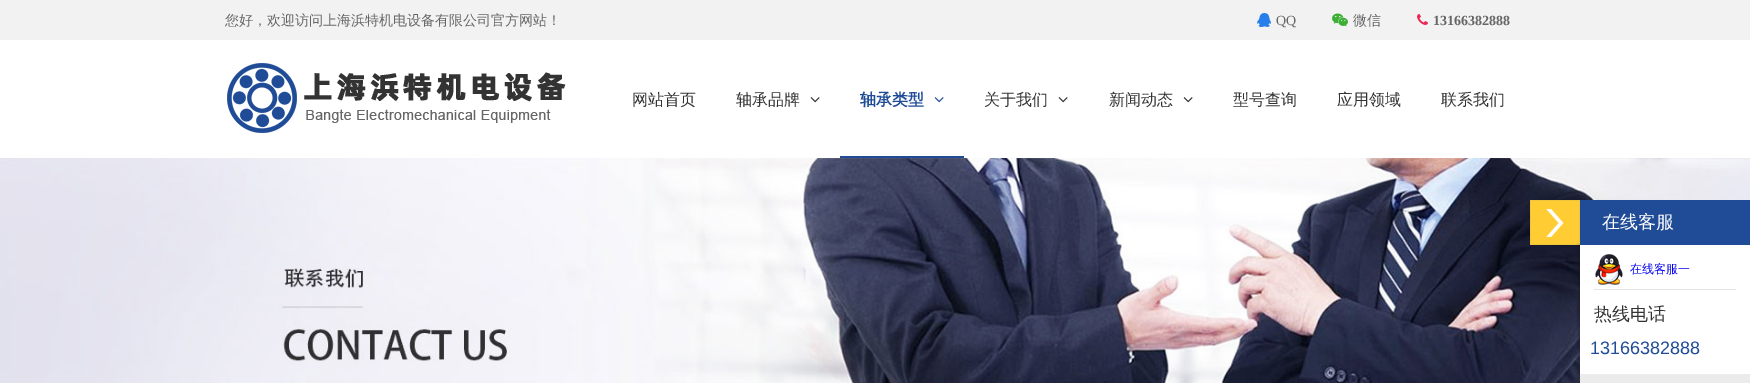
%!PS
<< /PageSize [1750 383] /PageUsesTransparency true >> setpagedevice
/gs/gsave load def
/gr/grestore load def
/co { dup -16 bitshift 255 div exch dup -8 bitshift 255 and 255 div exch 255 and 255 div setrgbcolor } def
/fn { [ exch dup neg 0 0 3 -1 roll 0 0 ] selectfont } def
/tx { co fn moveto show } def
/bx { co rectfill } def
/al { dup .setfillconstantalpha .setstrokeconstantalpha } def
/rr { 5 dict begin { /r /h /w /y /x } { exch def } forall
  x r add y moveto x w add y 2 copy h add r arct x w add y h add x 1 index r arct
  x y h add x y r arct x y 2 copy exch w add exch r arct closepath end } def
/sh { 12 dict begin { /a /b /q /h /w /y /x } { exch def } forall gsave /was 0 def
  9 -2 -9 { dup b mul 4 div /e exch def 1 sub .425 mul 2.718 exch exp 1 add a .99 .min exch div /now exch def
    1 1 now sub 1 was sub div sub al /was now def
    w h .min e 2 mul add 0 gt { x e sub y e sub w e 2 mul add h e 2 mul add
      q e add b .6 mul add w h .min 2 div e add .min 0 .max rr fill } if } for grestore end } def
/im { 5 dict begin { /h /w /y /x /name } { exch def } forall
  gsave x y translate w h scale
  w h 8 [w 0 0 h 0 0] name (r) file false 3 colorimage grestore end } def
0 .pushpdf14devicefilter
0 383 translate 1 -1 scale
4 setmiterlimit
0 0 1750 383 16#FFFFFF bx
0 0 1750 40 16#F2F2F2 bx
(media/1.raw) 1257 13 14 14 im
(media/2.raw) 1332 13 16 14 im
(media/3.raw) 1417 14 11 11 im
(media/4.raw) 227 63 339 70 im
(media/5.raw) 810 97 10 6 im
(media/6.raw) 934 97 10 6 im
840 156 124 2 16#204C97 bx
(media/5.raw) 1058 97 10 6 im
(media/5.raw) 1183 97 10 6 im
(media/7.raw) 0 158 1750 225 im
(media/8.raw) 1530 200 50 45 im
1580 245 170 129 16#FFFFFF bx
gs
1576 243 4 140 rectclip
16#000000 co
1578 245 170 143 0 1.5 .25 sh
gr
1580 200 170 45 16#204C97 bx
1594 289 142 1 16#E3E3E3 bx
(media/9.raw) 1595 254 29 33 im
1580 374 170 9 16#EBEBEB bx
(您好，欢迎访问上海浜特机电设备有限公司官方网站！) 225 25 /WenQuanYiZenHei-Medium 14 16#666666 tx
(QQ) 1276 25 /LiberationSerif-Regular 14 16#666666 tx
(微信) 1353 25 /WenQuanYiZenHei-Medium 14 16#666666 tx
(13166382888) 1433 25 /LiberationSerif-Bold 14 16#666666 tx
(网站首页) 632 105 /WenQuanYiZenHei-Medium 16 16#333333 tx
(轴承品牌) 736 105 /WenQuanYiZenHei-Medium 16 16#333333 tx
(轴承类型) 860 105 /WenQuanYiZenHei-Bold 16 16#204C97 tx
(关于我们) 984 105 /WenQuanYiZenHei-Medium 16 16#333333 tx
(新闻动态) 1109 105 /WenQuanYiZenHei-Medium 16 16#333333 tx
(型号查询) 1233 105 /WenQuanYiZenHei-Medium 16 16#333333 tx
(应用领域) 1337 105 /WenQuanYiZenHei-Medium 16 16#333333 tx
(联系我们) 1441 105 /WenQuanYiZenHei-Medium 16 16#333333 tx
(在线客服) 1602 228 /WenQuanYiZenHei-Medium 18 16#FFFFFF tx
(在线客服一) 1630 273 /WenQuanYiZenHei-Medium 12 16#0000EE tx
(热线电话) 1594 320 /WenQuanYiZenHei-Medium 18 16#333333 tx
(13166382888) 1590 354 /LiberationSans-Regular 18 16#204C97 tx
.poppdf14devicefilter showpage
